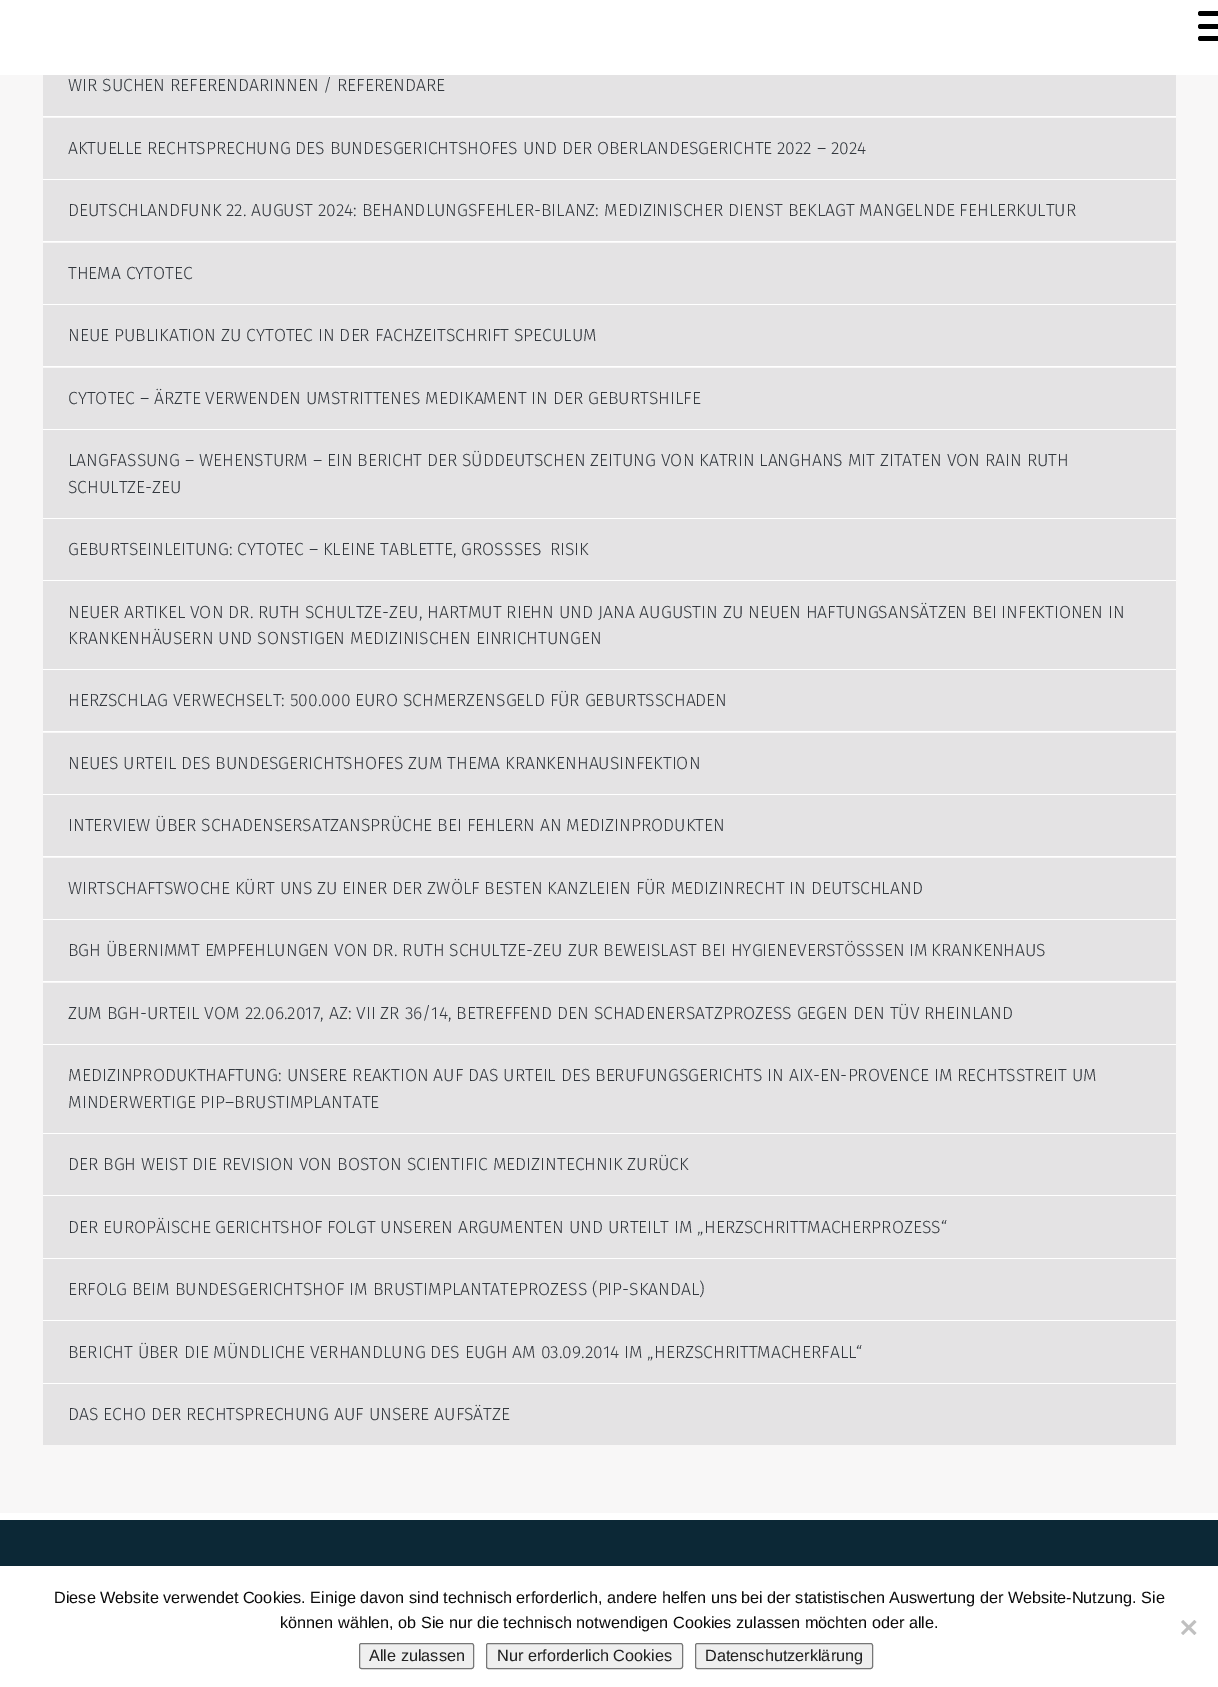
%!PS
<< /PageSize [1218 1687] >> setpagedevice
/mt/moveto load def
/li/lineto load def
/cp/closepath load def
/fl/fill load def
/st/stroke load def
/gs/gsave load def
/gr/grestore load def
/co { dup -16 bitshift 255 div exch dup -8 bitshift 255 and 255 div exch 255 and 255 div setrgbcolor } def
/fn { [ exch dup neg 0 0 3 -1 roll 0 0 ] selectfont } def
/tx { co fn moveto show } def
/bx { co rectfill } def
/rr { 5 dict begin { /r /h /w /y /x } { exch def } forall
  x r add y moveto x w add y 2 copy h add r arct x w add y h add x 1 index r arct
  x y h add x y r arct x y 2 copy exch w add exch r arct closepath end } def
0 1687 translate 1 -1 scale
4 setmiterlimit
0 0 1218 1687 16#F8F7F7 bx
0 0 1218 75 16#FFFFFF bx
16#000000 co
1198 11 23 5 2.5 rr fl
1198 24 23 5 2.5 rr fl
1198 36 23 5 2.5 rr fl
0 1513 1218 7 16#FFFFFF bx
43 75 1133 41 16#E4E3E4 bx
43 116 1133 1 16#FFFFFF bx
43 118 1133 61 16#E4E3E4 bx
43 179 1133 1 16#FFFFFF bx
43 180 1133 61 16#E4E3E4 bx
43 241 1133 1 16#FFFFFF bx
43 243 1133 61 16#E4E3E4 bx
43 304 1133 1 16#FFFFFF bx
43 305 1133 61 16#E4E3E4 bx
43 366 1133 1 16#FFFFFF bx
43 368 1133 61 16#E4E3E4 bx
43 429 1133 1 16#FFFFFF bx
43 430 1133 88 16#E4E3E4 bx
43 518 1133 1 16#FFFFFF bx
43 519 1133 61 16#E4E3E4 bx
43 580 1133 1 16#FFFFFF bx
43 581 1133 88 16#E4E3E4 bx
43 669 1133 1 16#FFFFFF bx
43 670 1133 61 16#E4E3E4 bx
43 731 1133 1 16#FFFFFF bx
43 733 1133 61 16#E4E3E4 bx
43 794 1133 1 16#FFFFFF bx
43 795 1133 61 16#E4E3E4 bx
43 856 1133 1 16#FFFFFF bx
43 858 1133 61 16#E4E3E4 bx
43 919 1133 1 16#FFFFFF bx
43 920 1133 61 16#E4E3E4 bx
43 981 1133 1 16#FFFFFF bx
43 983 1133 61 16#E4E3E4 bx
43 1044 1133 1 16#FFFFFF bx
43 1045 1133 88 16#E4E3E4 bx
43 1133 1133 1 16#FFFFFF bx
43 1134 1133 61 16#E4E3E4 bx
43 1195 1133 1 16#FFFFFF bx
43 1196 1133 62 16#E4E3E4 bx
43 1258 1133 1 16#FFFFFF bx
43 1259 1133 61 16#E4E3E4 bx
43 1320 1133 1 16#FFFFFF bx
43 1321 1133 62 16#E4E3E4 bx
43 1383 1133 1 16#FFFFFF bx
43 1384 1133 61 16#E4E3E4 bx
0 1520 1218 46 16#0C2836 bx
0 1566 1218 121 16#FFFFFF bx
16#C0C0C0 co
1194.5 1620 mt 1196.5 1622 li 1183 1635 li 1181 1633 li cp fl
1181 1622 mt 1183 1620 li 1196.5 1633 li 1194.5 1635 li cp fl
16#EFEFEF co
359.5 1643.5 114 25 2 rr gs fl gr
16#767676 co
st
16#EFEFEF co
486.5 1643.5 196 25 2 rr gs fl gr
16#767676 co
st
16#EFEFEF co
695.5 1643.5 177 25 2 rr gs fl gr
16#767676 co
st
(WIR SUCHEN REFERENDARINNEN / REFERENDARE) 68 91 /FiraSans-Light 17.5 16#32373D tx
(AKTUELLE RECHTSPRECHUNG DES BUNDESGERICHTSHOFES UND DER OBERLANDESGERICHTE 2022 – 2024) 68 154 /FiraSans-Light 17.5 16#32373D tx
(DEUTSCHLANDFUNK 22. AUGUST 2024: BEHANDLUNGSFEHLER-BILANZ: MEDIZINISCHER DIENST BEKLAGT MANGELNDE FEHLERKULTUR) 68 216 /FiraSans-Light 17.5 16#32373D tx
(THEMA CYTOTEC) 68 279 /FiraSans-Light 17.5 16#32373D tx
(NEUE PUBLIKATION ZU CYTOTEC IN DER FACHZEITSCHRIFT SPECULUM) 68 341 /FiraSans-Light 17.5 16#32373D tx
(CYTOTEC – ÄRZTE VERWENDEN UMSTRITTENES MEDIKAMENT IN DER GEBURTSHILFE) 68 404 /FiraSans-Light 17.5 16#32373D tx
(LANGFASSUNG – WEHENSTURM – EIN BERICHT DER SÜDDEUTSCHEN ZEITUNG VON KATRIN LANGHANS MIT ZITATEN VON RAIN RUTH) 68 466 /FiraSans-Light 17.5 16#32373D tx
(SCHULTZE-ZEU) 68 493 /FiraSans-Light 17.5 16#32373D tx
(GEBURTSEINLEITUNG: CYTOTEC – KLEINE TABLETTE, GROSS) 68 555 /FiraSans-Light 17.5 16#32373D tx
514 555 mt 3 0 32 (SES RISIK) widthshow
(NEUER ARTIKEL VON DR. RUTH SCHULTZE-ZEU, HARTMUT RIEHN UND JANA AUGUSTIN ZU NEUEN HAFTUNGSANSÄTZEN BEI INFEKTIONEN IN) 68 618 /FiraSans-Light 17.5 16#32373D tx
(KRANKENHÄUSERN UND SONSTIGEN MEDIZINISCHEN EINRICHTUNGEN) 68 644 /FiraSans-Light 17.5 16#32373D tx
(HERZSCHLAG VERWECHSELT: 500.000 EURO SCHMERZENSGELD FÜR GEBURTSSCHADEN) 68 706 /FiraSans-Light 17.5 16#32373D tx
(NEUES URTEIL DES BUNDESGERICHTSHOFES ZUM THEMA KRANKENHAUSINFEKTION) 68 769 /FiraSans-Light 17.5 16#32373D tx
(INTERVIEW ÜBER SCHADENSERSATZANSPRÜCHE BEI FEHLERN AN MEDIZINPRODUKTEN) 68 831 /FiraSans-Light 17.5 16#32373D tx
(WIRTSCHAFTSWOCHE KÜRT UNS ZU EINER DER ZWÖLF BESTEN KANZLEIEN FÜR MEDIZINRECHT IN DEUTSCHLAND) 68 894 /FiraSans-Light 17.5 16#32373D tx
(BGH ÜBERNIMMT EMPFEHLUNGEN VON DR. RUTH SCHULTZE-ZEU ZUR BEWEISLAST BEI HYGIENEVERSTÖSS) 68 956 /FiraSans-Light 17.5 16#32373D tx
875 956 mt -1 0 32 (SEN IM KRANKENHAUS) widthshow
(ZUM BGH-URTEIL VOM 22.06.2017, AZ: VII ZR 36/14, BETREFFEND DEN SCHADENERSATZPROZESS GEGEN DEN TÜV RHEINLAND) 68 1019 /FiraSans-Light 17.5 16#32373D tx
(MEDIZINPRODUKTHAFTUNG: UNSERE REAKTION AUF DAS URTEIL DES BERUFUNGSGERICHTS IN AIX-EN-PROVENCE IM RECHTSSTREIT UM) 68 1081 /FiraSans-Light 17.5 16#32373D tx
(MINDERWERTIGE PIP–BRUSTIMPLANTATE) 68 1108 /FiraSans-Light 17.5 16#32373D tx
(DER BGH WEIST DIE REVISION VON BOSTON SCIENTIFIC MEDIZINTECHNIK ZURÜCK) 68 1170 /FiraSans-Light 17.5 16#32373D tx
(DER EUROPÄISCHE GERICHTSHOF FOLGT UNSEREN ARGUMENTEN UND URTEILT IM „HERZSCHRITTMACHERPROZESS“) 68 1233 /FiraSans-Light 17.5 16#32373D tx
(ERFOLG BEIM BUNDESGERICHTSHOF IM BRUSTIMPLANTATEPROZESS \(PIP-SKANDAL\)) 68 1295 /FiraSans-Light 17.5 16#32373D tx
(BERICHT ÜBER DIE MÜNDLICHE VERHANDLUNG DES EUGH AM 03.09.2014 IM „HERZSCHRITTMACHERFALL“) 68 1358 /FiraSans-Light 17.5 16#32373D tx
(DAS ECHO DER RECHTSPRECHUNG AUF UNSERE AUFSÄTZE) 68 1420 /FiraSans-Light 17.5 16#32373D tx
(Diese Website verwendet Cookies. Einige davon sind technisch erforderlich, andere helfen uns bei der statistischen Auswertung der Website-Nutzung. Sie) 54 1603 /LiberationSans-Regular 16.25 16#0A0A0A tx
(können wählen, ob Sie nur die technisch notwendigen Cookies zulassen möchten oder alle.) 280 1628 /LiberationSans-Regular 16.25 16#0A0A0A tx
(Alle zulassen) 369 1661 /LiberationSans-Regular 16.25 16#202020 tx
(Nur erforderlich Cookies) 497 1661 /LiberationSans-Regular 16.25 16#202020 tx
(Datenschutzerklärung) 705 1661 /LiberationSans-Regular 16.25 16#202020 tx
showpage
